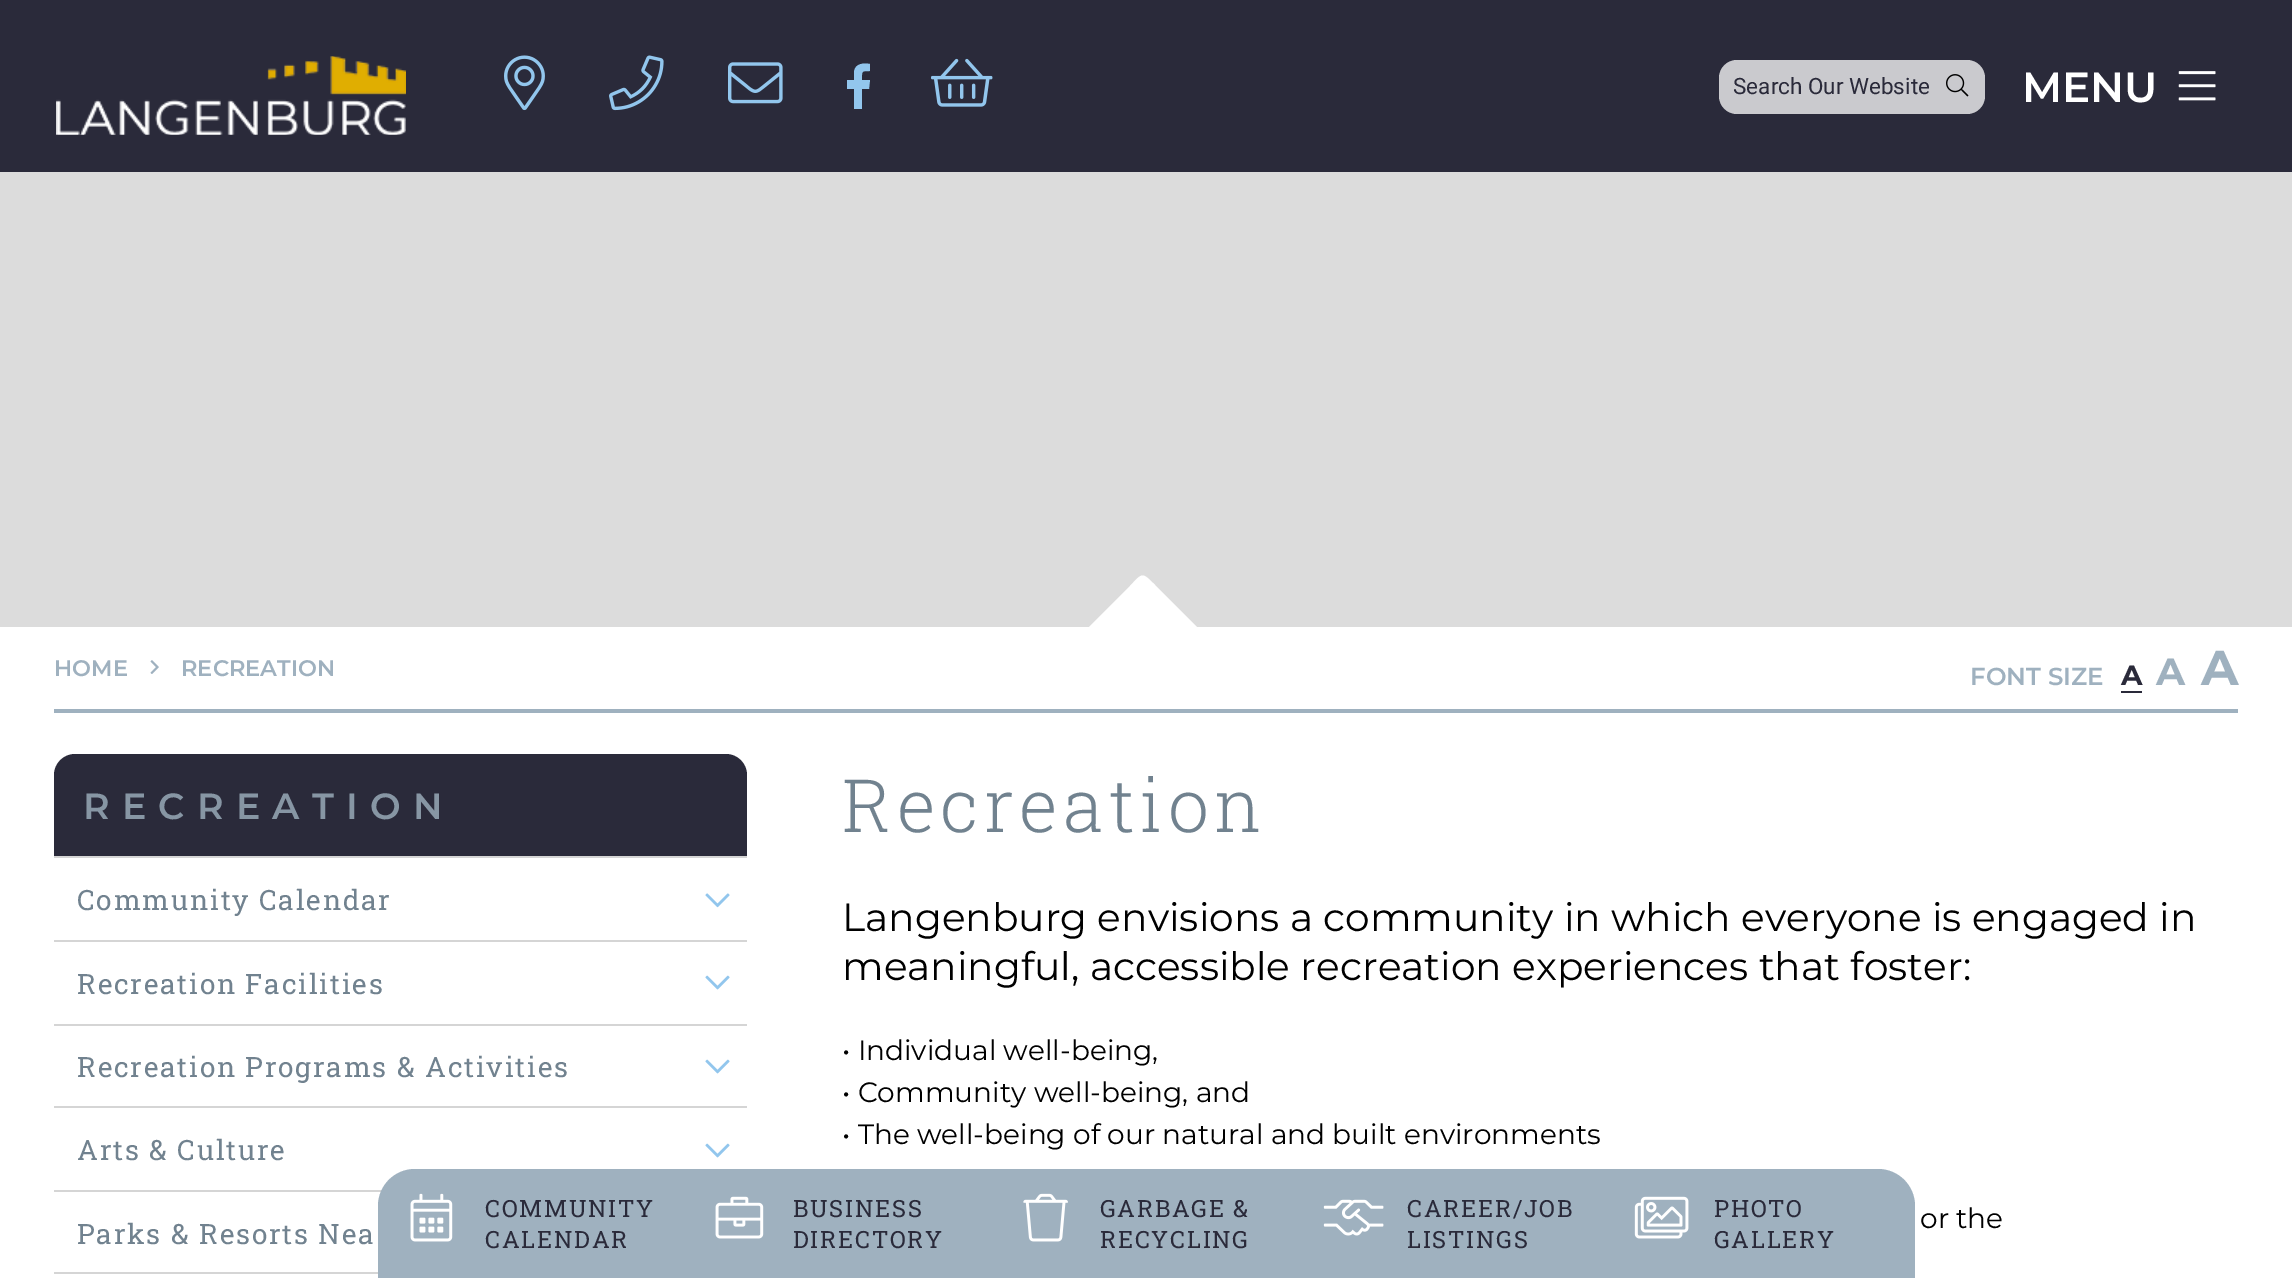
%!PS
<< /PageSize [2292 1278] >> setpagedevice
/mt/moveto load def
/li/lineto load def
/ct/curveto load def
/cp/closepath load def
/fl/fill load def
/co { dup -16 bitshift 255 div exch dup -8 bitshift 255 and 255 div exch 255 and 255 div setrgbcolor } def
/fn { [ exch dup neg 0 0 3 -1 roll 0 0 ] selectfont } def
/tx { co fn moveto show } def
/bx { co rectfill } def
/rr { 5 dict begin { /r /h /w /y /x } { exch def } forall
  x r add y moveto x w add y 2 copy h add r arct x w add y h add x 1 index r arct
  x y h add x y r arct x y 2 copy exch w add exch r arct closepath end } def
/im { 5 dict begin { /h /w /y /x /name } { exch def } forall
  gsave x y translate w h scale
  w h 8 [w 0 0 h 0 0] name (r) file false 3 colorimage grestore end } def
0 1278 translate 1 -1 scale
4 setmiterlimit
0 0 2292 1278 16#FFFFFF bx
0 0 2292 172 16#2A2A3A bx
(media/1.raw) 56 56 350 79 im
(media/2.raw) 504 55 41 56 im
(media/3.raw) 609 55 55 56 im
(media/4.raw) 728 62 55 42 im
16#92C6ED co
854 109 mt 854 89 li 847 89 li 847 80 li 854 80 li 854 72 li 855 63 864 63 870 64 ct 870 71 li 861 71 862 71 862 80 ct 870 80 li 869 89 li 862 89 li 862 109 li cp fl
(media/5.raw) 931 58 62 49 im
16#CACACE co
1719 60 266 54 18 rr fl
(media/6.raw) 1946 74 23 23 im
(media/7.raw) 2178 71 38 30 im
0 172 2292 455 16#DCDCDC bx
16#FFFFFF co
1197 627 mt 1198 629 li 1199 631 1199 633 1198 634 ct 1195 642 1180 639 1175 639 ct 1092 639 li 1087 638 1085 631 1089 627 ct 1130 586 li 1143 572 1142 572 1156 586 ct cp fl
54 709 2184 4 16#9FB1BF bx
(media/8.raw) 150 660 9 14 im
2121 691 21 2 16#2A2A3A bx
75 754 mt 726 754 li 737.5 754 747 763.5 747 775 ct 747 858 li 54 858 li 54 775 li 54 763.5 63.5 754 75 754 ct cp fl
54 856 693 2 16#D5D5D5 bx
54 940 693 2 16#D5D5D5 bx
(media/9.raw) 705 893 25 15 im
54 1024 693 2 16#D5D5D5 bx
(media/10.raw) 705 975 25 15 im
54 1106 693 2 16#D5D5D5 bx
(media/10.raw) 705 1059 25 15 im
54 1190 328 2 16#D5D5D5 bx
(media/10.raw) 705 1143 25 15 im
54 1272 324 2 16#D5D5D5 bx
16#9FB1BF co
415 1169 mt 1878 1169 li 1898.5 1169 1915 1185.5 1915 1206 ct 1915 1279 li 378 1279 li 378 1206 li 378 1185.5 394.5 1169 415 1169 ct cp fl
(media/11.raw) 410 1193 43 49 im
(media/12.raw) 715 1196 49 43 im
(media/13.raw) 1023 1193 45 49 im
(media/14.raw) 1323 1199 61 37 im
(media/15.raw) 1634 1196 55 43 im
(Search Our Website) 1733 94 /Roboto-Regular 22.5 16#2A2A3A tx
(MENU) 2022 102 /Montserrat-SemiBold 42 16#FFFFFF tx
(HOME) 54 676 /Montserrat-SemiBold 22.5 16#9FB1BF tx
(RECREATION) 181 676 /Montserrat-SemiBold 22.5 16#9FB1BF tx
(FONT SIZE) 1970 685 /Montserrat-SemiBold 24.5 16#9FB1BF tx
(A) 2121 685 /Montserrat-Bold 28 16#2A2A3A tx
(A) 2156 685 /Montserrat-Bold 38 16#9FB1BF tx
(A) 2201 685 /Montserrat-Bold 49 16#9FB1BF tx
/Montserrat-SemiBold 36.4 fn
16#8796A4 co
83 819 mt 12.25 0 (RECREATION) ashow
/RobotoSlab-Regular 28 fn
16#71828F co
77 910 mt 1.75 0 (Community Calendar) ashow
77 994 mt 1.75 0 (Recreation Facilities) ashow
77 1077 mt 1.75 0 (Recreation Programs & Activities) ashow
77 1160 mt 1.75 0 (Arts & Culture) ashow
77 1244 mt 1.75 0 (Parks & Resorts Nea) ashow
/RobotoSlab-Light 73.5 fn
842 832 mt 5.25 0 (Recreation) ashow
(Langenburg envisions a community in which everyone is engaged in) 842 931 /Montserrat-Regular 39.2 16#000000 tx
(meaningful, accessible recreation experiences that foster:) 842 980 /Montserrat-Regular 39.2 16#000000 tx
(• Individual well-being,) 842 1060 /Montserrat-Regular 28 16#000000 tx
(• Community well-being, and) 842 1102 /Montserrat-Regular 28 16#000000 tx
(• The well-being of our natural and built environments) 842 1144 /Montserrat-Regular 28 16#000000 tx
(or the) 1920 1228 /Montserrat-Regular 28 16#000000 tx
/RobotoSlab-Regular 23.75 fn
16#2A2A3A co
485 1217 mt 1.75 0 (COMMUNITY) ashow
485 1248 mt 1.75 0 (CALENDAR) ashow
793 1217 mt 1.75 0 (BUSINESS) ashow
793 1248 mt 1.75 0 (DIRECTORY) ashow
1100 1217 mt 1.75 0 (GARBAGE &) ashow
1100 1248 mt 1.75 0 (RECYCLING) ashow
1407 1217 mt 1.75 0 (CAREER/JOB) ashow
1407 1248 mt 1.75 0 (LISTINGS) ashow
1714 1217 mt 1.75 0 (PHOTO) ashow
1714 1248 mt 1.75 0 (GALLERY) ashow
showpage
